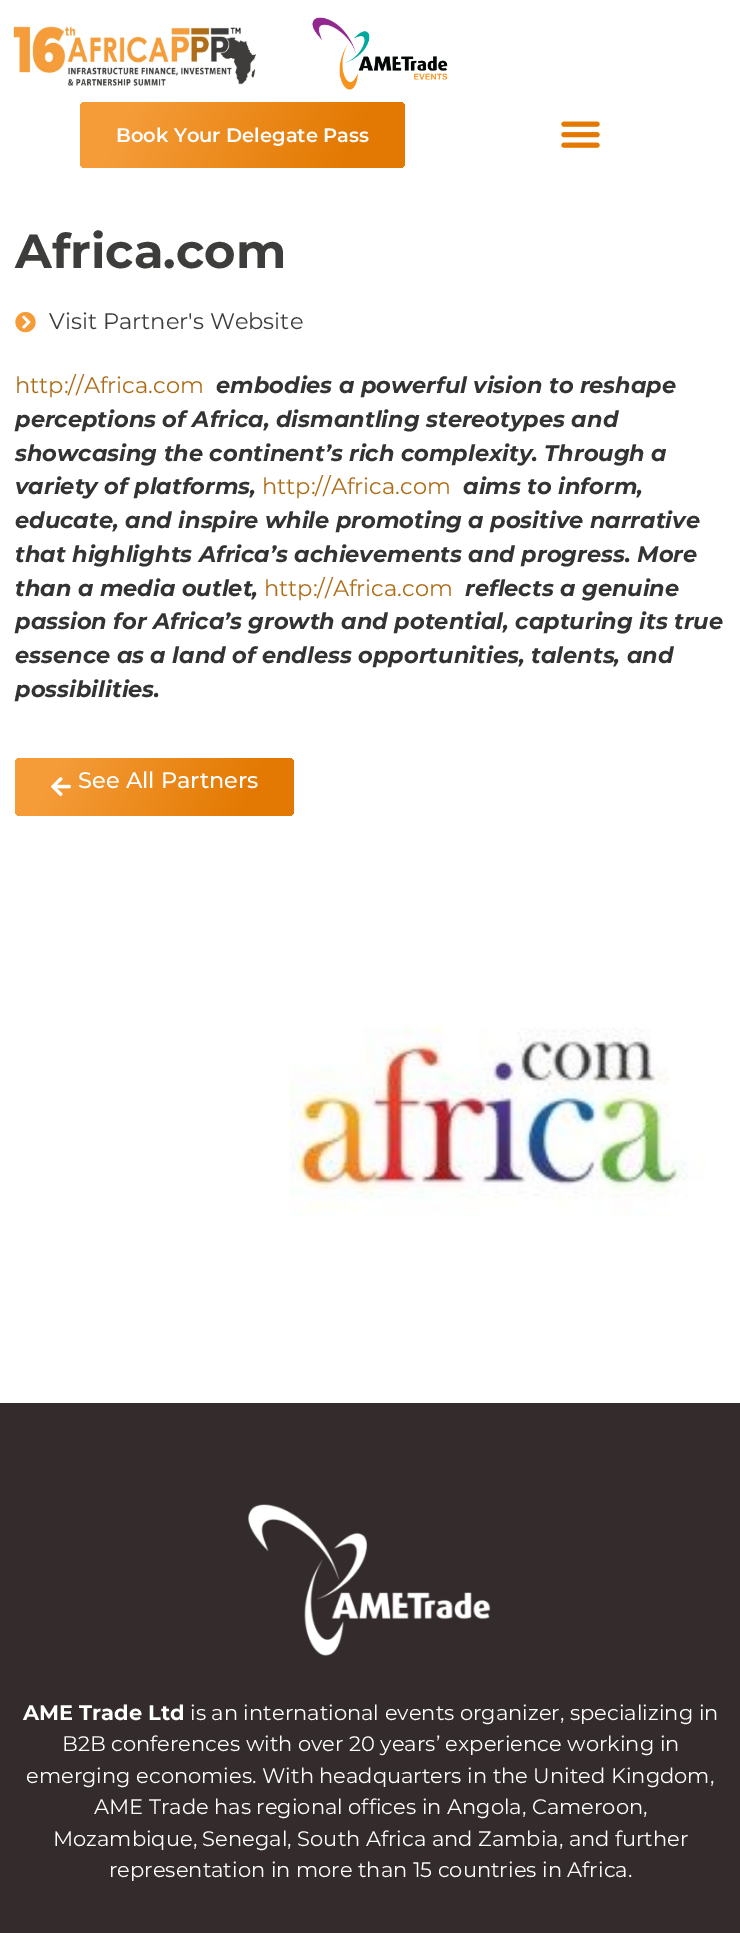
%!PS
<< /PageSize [740 1933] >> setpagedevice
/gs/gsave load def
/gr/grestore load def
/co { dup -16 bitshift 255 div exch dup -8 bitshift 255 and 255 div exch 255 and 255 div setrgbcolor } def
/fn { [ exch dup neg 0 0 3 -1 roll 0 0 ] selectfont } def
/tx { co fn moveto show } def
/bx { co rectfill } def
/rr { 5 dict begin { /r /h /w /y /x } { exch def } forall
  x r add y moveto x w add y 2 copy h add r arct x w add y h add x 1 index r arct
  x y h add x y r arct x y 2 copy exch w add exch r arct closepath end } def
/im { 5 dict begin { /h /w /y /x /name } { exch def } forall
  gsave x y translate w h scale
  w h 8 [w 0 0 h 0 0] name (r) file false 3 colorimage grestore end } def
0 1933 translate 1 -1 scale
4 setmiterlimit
0 0 740 1933 16#FFFFFF bx
(media/1.raw) 13 26 243 60 im
(media/2.raw) 312 17 136 73 im
gs 80 102 325 66 5 rr clip newpath
<< /ShadingType 2 /ColorSpace /DeviceRGB /Coords [98 65 387 205] /Extend [true true] /Function << /FunctionType 3 /Domain [0 1] /Functions [<< /FunctionType 2 /Domain [0 1] /C0 [.961 .612 .224] /C1 [.961 .612 .224] /N 1 >> << /FunctionType 2 /Domain [0 1] /C0 [.961 .612 .224] /C1 [.89 .475 .008] /N 1 >> << /FunctionType 2 /Domain [0 1] /C0 [.89 .475 .008] /C1 [.89 .475 .008] /N 1 >>] /Bounds [.15 .82] /Encode [0 1 0 1 0 1] >> >> shfill gr
(media/3.raw) 561 121 39 27 im
(media/4.raw) 15 312 21 21 im
gs 15 758 279 58 5 rr clip newpath
<< /ShadingType 2 /ColorSpace /DeviceRGB /Coords [30 726 279 847] /Extend [true true] /Function << /FunctionType 3 /Domain [0 1] /Functions [<< /FunctionType 2 /Domain [0 1] /C0 [.961 .612 .224] /C1 [.961 .612 .224] /N 1 >> << /FunctionType 2 /Domain [0 1] /C0 [.961 .612 .224] /C1 [.89 .475 .008] /N 1 >> << /FunctionType 2 /Domain [0 1] /C0 [.89 .475 .008] /C1 [.89 .475 .008] /N 1 >>] /Bounds [.15 .82] /Encode [0 1 0 1 0 1] >> >> shfill gr
(media/5.raw) 51 777 20 20 im
(media/6.raw) 289 1026 417 191 im
0 1403 740 530 16#342C2C bx
(media/7.raw) 248 1504 243 152 im
(Book Your Delegate Pass) 116 142 /Montserrat-SemiBold 19.5 16#FFFFFF tx
(Africa.com) 15 268 /Montserrat-Bold 48 16#3D3D3C tx
(Visit Partner's Website) 49 329 /Montserrat-Regular 22.5 16#3D3D3C tx
(http://Africa.com) 15 393 /Montserrat-Regular 22.5 16#AF6C16 tx
(embodies a powerful vision to reshape) 216 393 /Montserrat-BoldItalic 22.5 16#333333 tx
(perceptions of Africa, dismantling stereotypes and) 15 427 /Montserrat-BoldItalic 22.5 16#333333 tx
(showcasing the continent’s rich complexity. Through a) 15 461 /Montserrat-BoldItalic 22.5 16#333333 tx
(variety of platforms,) 15 494 /Montserrat-BoldItalic 22.5 16#333333 tx
(http://Africa.com) 262 494 /Montserrat-Regular 22.5 16#AF6C16 tx
(aims to inform,) 463 494 /Montserrat-BoldItalic 22.5 16#333333 tx
(educate, and inspire while promoting a positive narrative) 15 528 /Montserrat-BoldItalic 22.5 16#333333 tx
(that highlights Africa’s achievements and progress. More) 15 562 /Montserrat-BoldItalic 22.5 16#333333 tx
(than a media outlet,) 15 596 /Montserrat-BoldItalic 22.5 16#333333 tx
(http://Africa.com) 264 596 /Montserrat-Regular 22.5 16#AF6C16 tx
(reflects a genuine) 465 596 /Montserrat-BoldItalic 22.5 16#333333 tx
(passion for Africa’s growth and potential, capturing its true) 15 629 /Montserrat-BoldItalic 22.5 16#333333 tx
(essence as a land of endless opportunities, talents, and) 15 663 /Montserrat-BoldItalic 22.5 16#333333 tx
(possibilities.) 15 697 /Montserrat-BoldItalic 22.5 16#333333 tx
(See All Partners) 78 788 /Montserrat-Medium 22.5 16#FFFFFF tx
(AME Trade Ltd) 23 1720 /Montserrat-Bold 21 16#FFFFFF tx
(is an international events organizer, specializing in) 190 1720 /Montserrat-Regular 21 16#FFFFFF tx
(B2B conferences with over 20 years’ experience working in) 62 1751 /Montserrat-Regular 21 16#FFFFFF tx
(emerging economies. With headquarters in the United Kingdom,) 26 1783 /Montserrat-Regular 21 16#FFFFFF tx
(AME Trade has regional offices in Angola, Cameroon,) 94 1814 /Montserrat-Regular 21 16#FFFFFF tx
(Mozambique, Senegal, South Africa and Zambia, and further) 53 1846 /Montserrat-Regular 21 16#FFFFFF tx
(representation in more than 15 countries in Africa.) 109 1877 /Montserrat-Regular 21 16#FFFFFF tx
showpage
